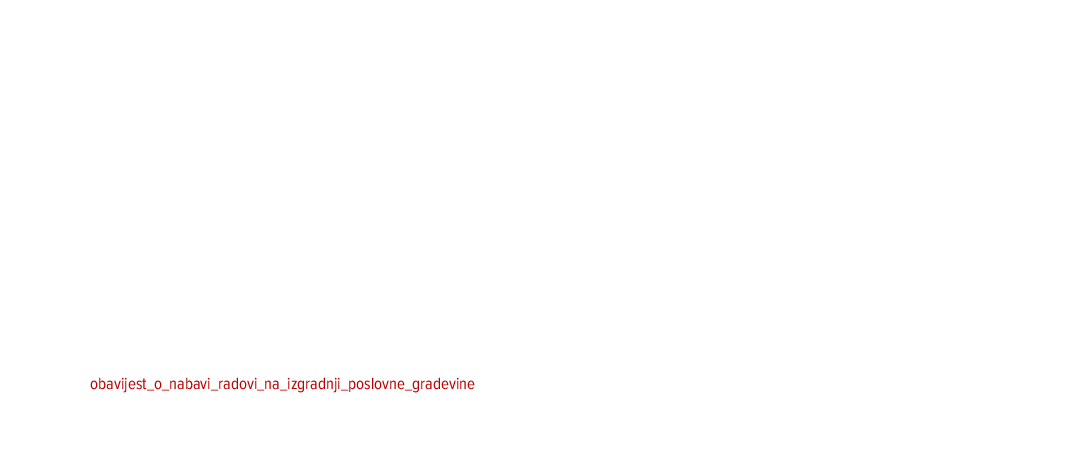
%!PS
<< /PageSize [1070 475] >> setpagedevice
/co { dup -16 bitshift 255 div exch dup -8 bitshift 255 and 255 div exch 255 and 255 div setrgbcolor } def
/fn { [ exch dup neg 0 0 3 -1 roll 0 0 ] selectfont } def
/tx { co fn moveto show } def
/bx { co rectfill } def
0 475 translate 1 -1 scale
4 setmiterlimit
0 0 1070 475 16#FFFFFF bx
(obavijest_o_nabavi_radovi_na_izgradnji_poslovne_gradevine) 90 389 /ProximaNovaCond-Regular 17 16#BB0000 tx
showpage
